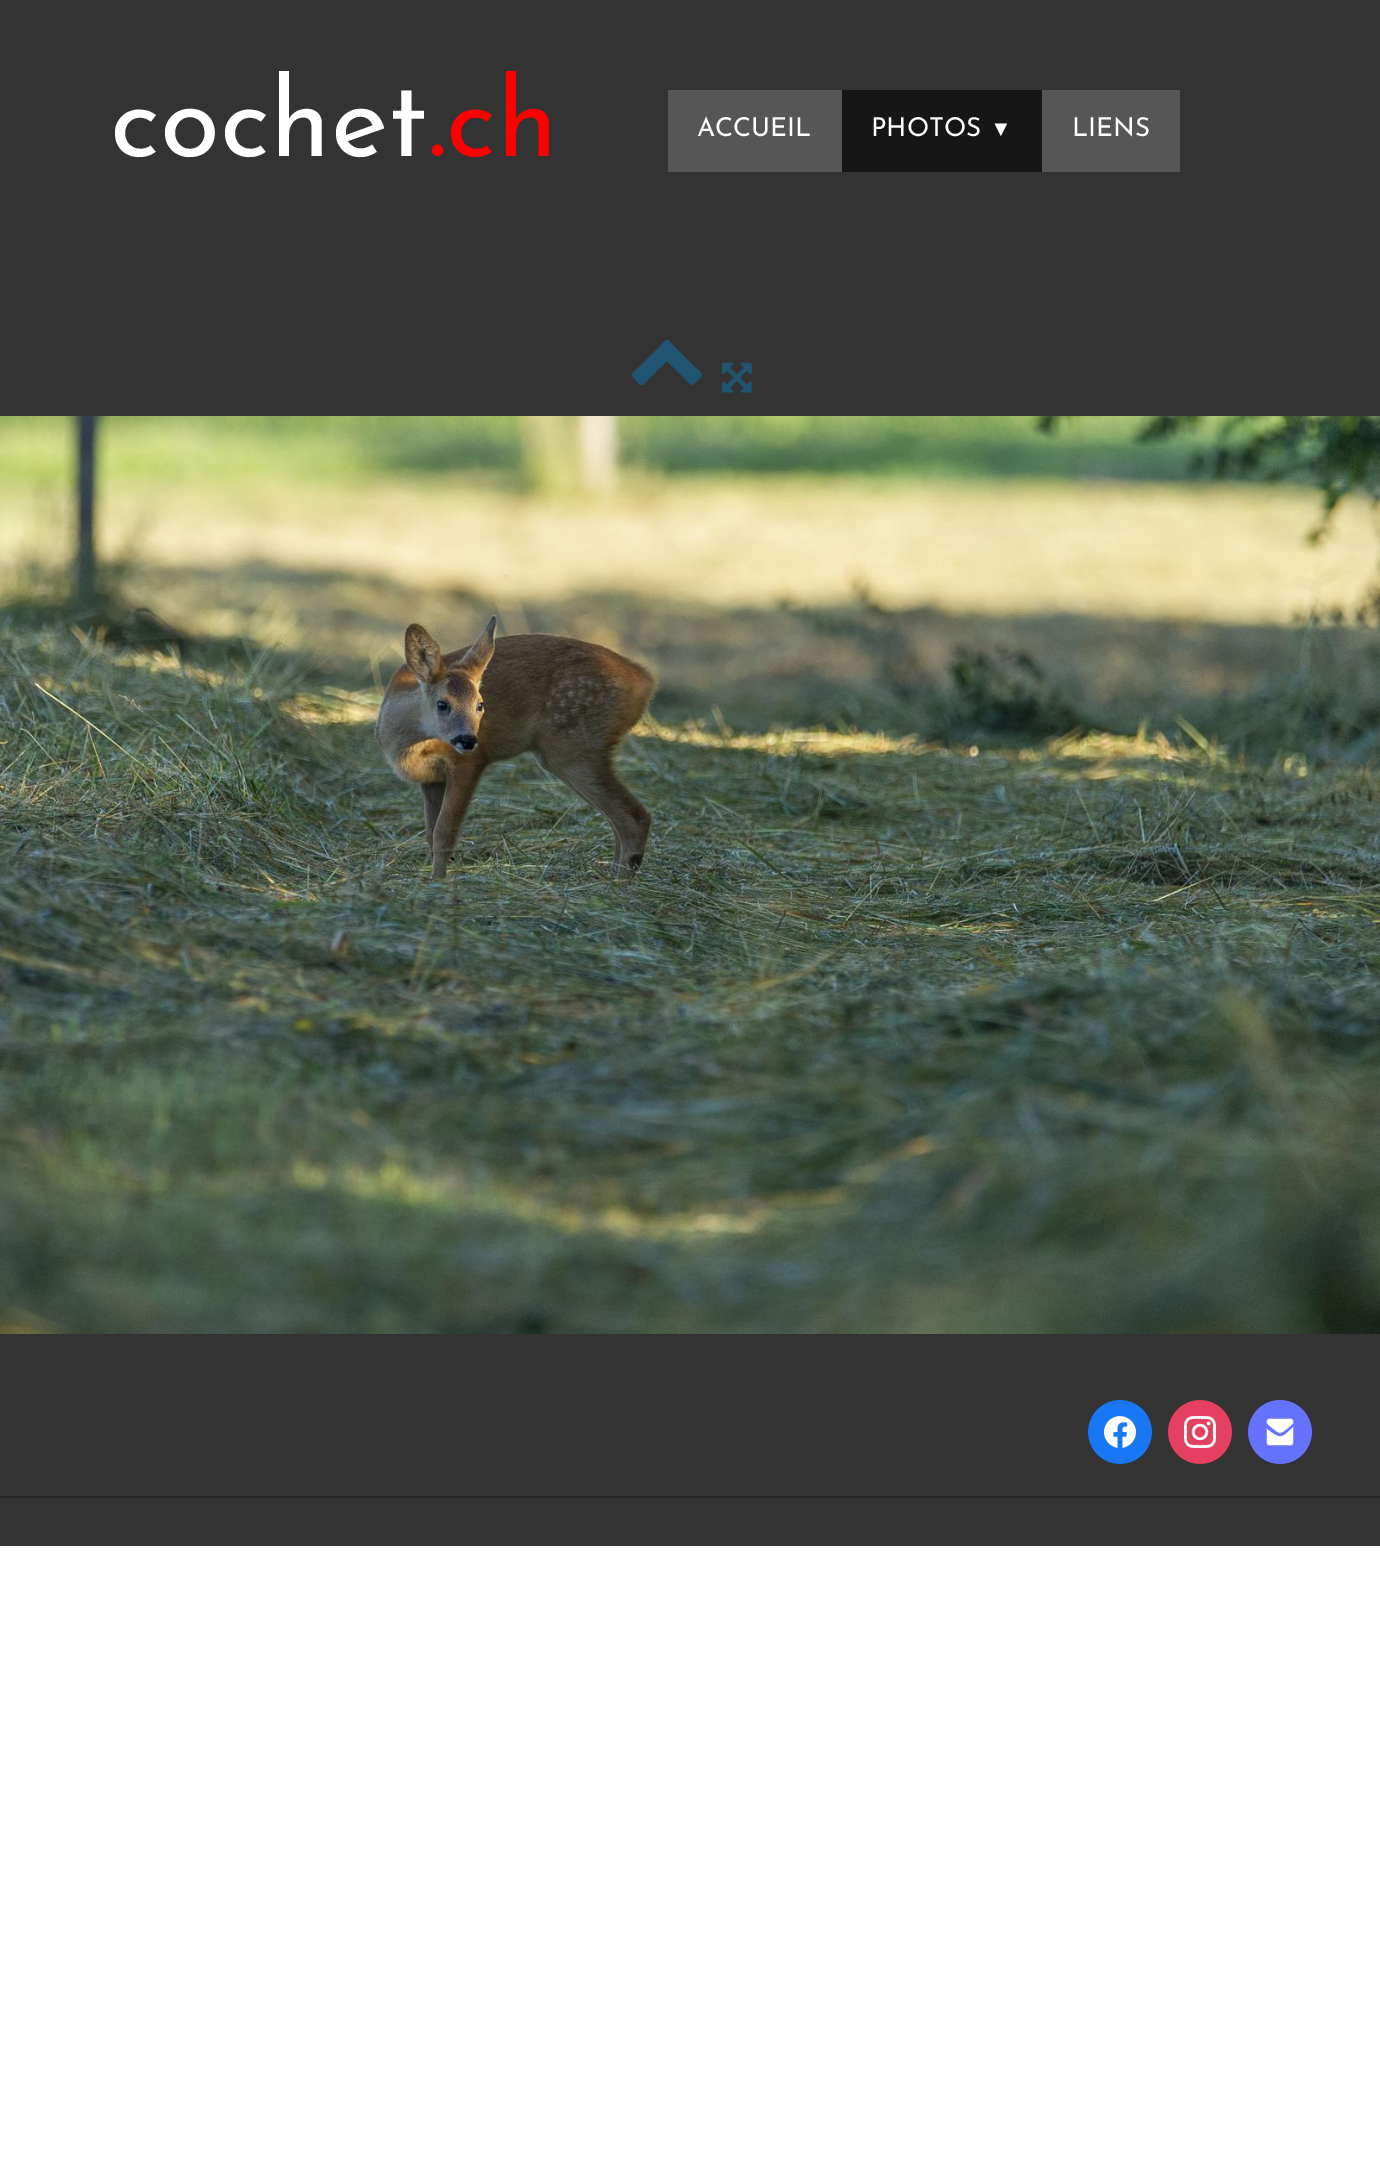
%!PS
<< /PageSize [1380 2164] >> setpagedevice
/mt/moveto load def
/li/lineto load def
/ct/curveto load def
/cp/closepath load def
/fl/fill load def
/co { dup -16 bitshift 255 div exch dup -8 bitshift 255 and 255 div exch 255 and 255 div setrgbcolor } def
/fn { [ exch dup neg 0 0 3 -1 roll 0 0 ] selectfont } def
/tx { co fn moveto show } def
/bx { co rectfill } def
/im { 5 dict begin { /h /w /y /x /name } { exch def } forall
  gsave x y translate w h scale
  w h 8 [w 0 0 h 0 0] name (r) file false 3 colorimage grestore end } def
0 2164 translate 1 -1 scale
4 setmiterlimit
0 0 1380 2164 16#FFFFFF bx
0 0 1380 1546 16#333333 bx
668 90 512 82 16#565656 bx
842 90 200 82 16#161616 bx
16#1F5570 co
701 377 mt 695 383 li 691 387 690 384 686 380 ct 667 361 li 648 380 li 640 388 641 386 634 378 ct 629 374 634 372 638 368 ct 660 346 li 668 338 666 338 674 346 ct 696 368 li 697 369 705 374 701 377 ct cp fl
(media/1.raw) 722 362 30 31 im
(media/2.raw) 0 416 1380 918 im
(media/3.raw) 1088 1400 64 64 im
(media/4.raw) 1168 1400 64 64 im
(media/5.raw) 1248 1400 64 64 im
0 1496 1380 2 16#262626 bx
(cochet) 110 156 /JosefinSans-Thin 110 16#FFFFFF tx
(.ch) 428 156 /JosefinSans-Thin 110 16#FF0000 tx
(ACCUEIL) 697 136 /JosefinSans-Thin 26 16#FFFFFF tx
(PHOTOS) 871 136 /JosefinSans-Thin 26 16#FFFFFF tx
(▼) 990 136 /LiberationSans-Regular 22 16#FFFFFF tx
(LIENS) 1072 136 /JosefinSans-Thin 26 16#FFFFFF tx
showpage
